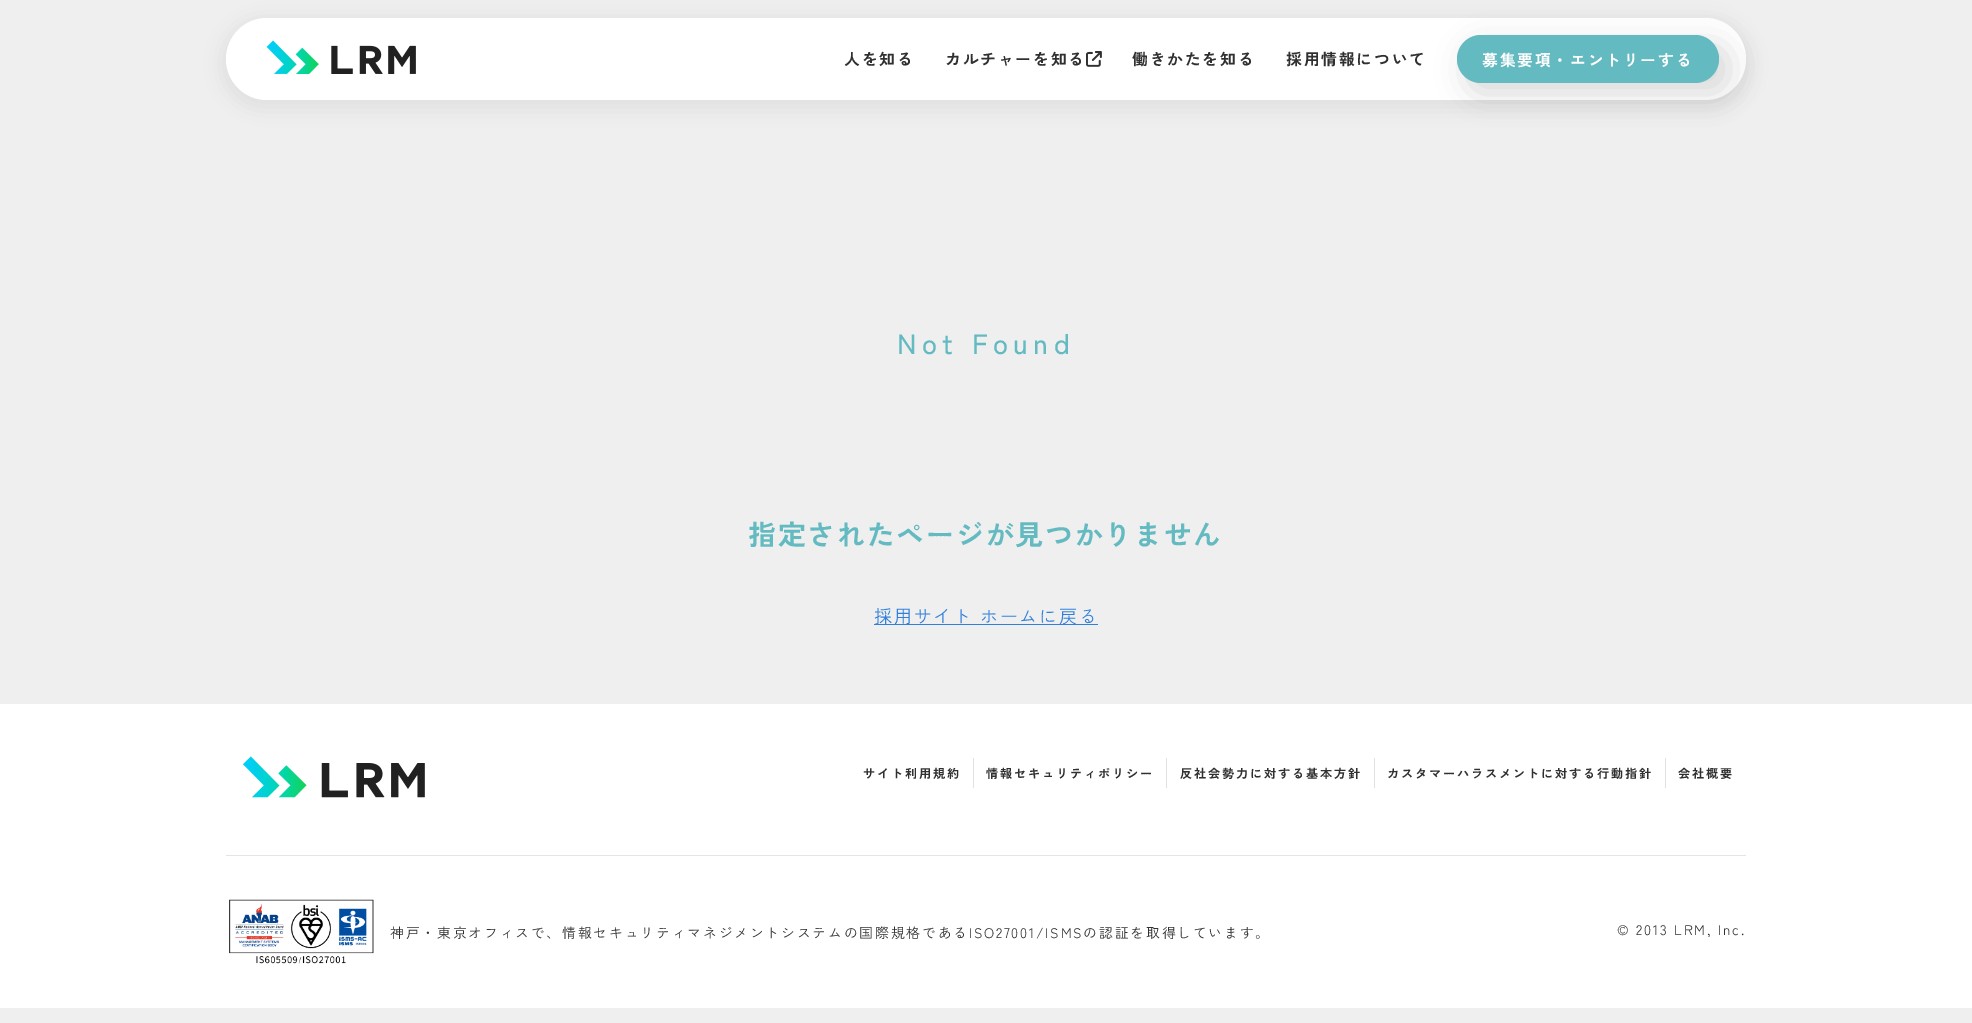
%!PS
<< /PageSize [1972 1023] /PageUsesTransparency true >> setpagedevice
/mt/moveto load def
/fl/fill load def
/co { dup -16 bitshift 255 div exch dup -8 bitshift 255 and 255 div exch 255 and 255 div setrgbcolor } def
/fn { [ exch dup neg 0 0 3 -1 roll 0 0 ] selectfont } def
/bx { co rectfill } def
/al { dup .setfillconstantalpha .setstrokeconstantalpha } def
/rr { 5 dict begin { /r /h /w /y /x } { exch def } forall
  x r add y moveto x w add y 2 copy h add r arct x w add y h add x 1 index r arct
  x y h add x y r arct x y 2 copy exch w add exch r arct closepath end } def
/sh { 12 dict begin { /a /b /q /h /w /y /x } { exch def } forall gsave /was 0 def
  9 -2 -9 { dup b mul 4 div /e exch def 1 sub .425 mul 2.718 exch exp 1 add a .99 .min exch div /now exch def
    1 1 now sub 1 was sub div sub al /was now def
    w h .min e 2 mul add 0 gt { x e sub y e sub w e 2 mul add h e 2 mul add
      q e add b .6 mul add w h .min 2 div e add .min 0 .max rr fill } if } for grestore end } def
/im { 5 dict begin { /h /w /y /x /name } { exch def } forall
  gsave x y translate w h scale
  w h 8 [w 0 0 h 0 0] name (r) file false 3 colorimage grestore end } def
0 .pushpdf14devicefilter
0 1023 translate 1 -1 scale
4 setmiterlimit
0 0 1972 1023 16#EFEFEF bx
16#000000 co
220 17 1532 94 47 9.5 .05 sh
16#FFFFFF co
226 18 1520 82 41 rr fl
(media/1.raw) 266 40 150 34 im
(media/2.raw) 1086 51 16 16 im
16#000000 co
1467 45 262 48 24 15 .15 sh
16#64BAC1 co
1457 35 262 48 24 rr fl
874 624 224 1 16#3080DB bx
0 704 1972 304 16#FFFFFF bx
226 855 1520 1 16#E5E5E5 bx
(media/3.raw) 243 756 182 42 im
973 758 1 30 16#E1E1E1 bx
1166 758 1 30 16#E1E1E1 bx
1374 758 1 30 16#E1E1E1 bx
1665 758 1 30 16#E1E1E1 bx
(media/4.raw) 229 899 145 65 im
/ZenKakuGothicNew-Bold 15.8 fn
16#303030 co
844 65 mt 1.8 0 (人を知る) ashow
945 65 mt 1.8 0 (カルチャーを知る) ashow
1132 65 mt 1.8 0 (働きかたを知る) ashow
1286 65 mt 1.8 0 (採用情報について) ashow
16#FFFFFF co
1482 66 mt 1.8 0 (募集要項・エントリーする) ashow
/ZenKakuGothicNew-Medium 27.9 fn
16#64BAC1 co
897 354 mt 5.5 0 (Not Found) ashow
/ZenKakuGothicNew-Bold 27.9 fn
748 545 mt 1.8 0 (指定されたページが見つかりません) ashow
/ZenKakuGothicNew-Regular 18 fn
16#3080DB co
874 623 mt 1.8 0 (採用サイト ホームに戻る) ashow
/ZenKakuGothicNew-Bold 12.2 fn
16#303030 co
863 778 mt 1.8 0 (サイト利用規約) ashow
986 778 mt 1.8 0 (情報セキュリティポリシー) ashow
1180 778 mt 1.8 0 (反社会勢力に対する基本方針) ashow
1387 778 mt 1.8 0 (カスタマーハラスメントに対する行動指針) ashow
1678 778 mt 1.8 0 (会社概要) ashow
/ZenKakuGothicNew-Regular 13.85 fn
390 938 mt 1.8 0 (神戸・東京オフィスで、情報セキュリティマネジメントシステムの国際規格であるISO27001/ISMSの認証を取得しています。) ashow
1617 935 mt 1.8 0 (© 2013 LRM, Inc.) ashow
.poppdf14devicefilter showpage
